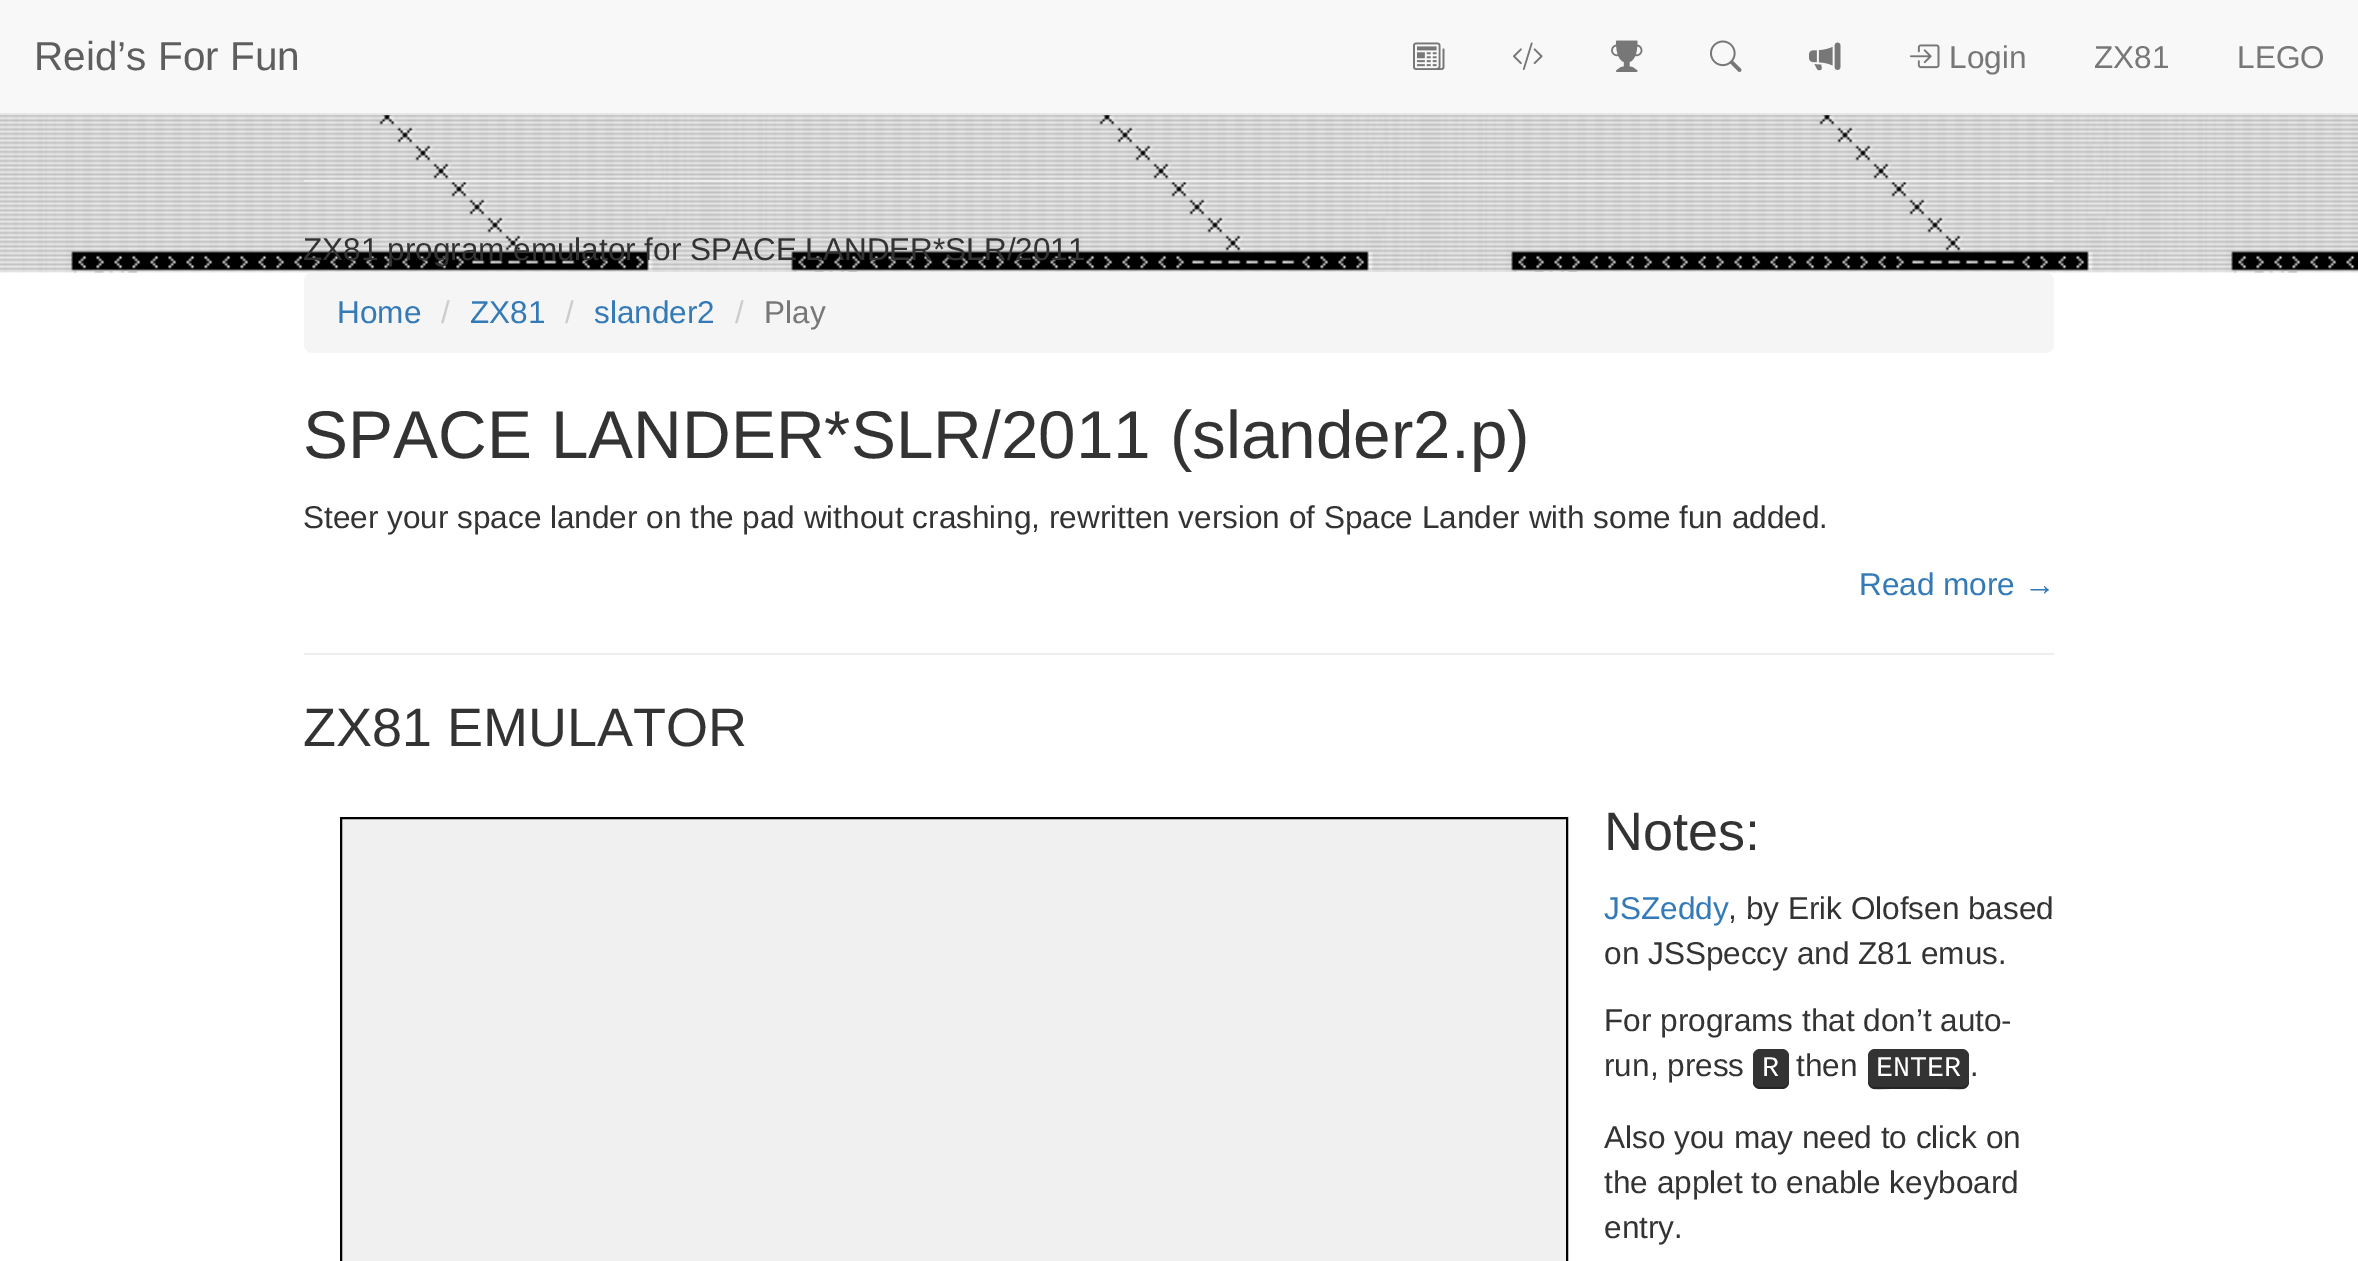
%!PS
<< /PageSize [2358 1261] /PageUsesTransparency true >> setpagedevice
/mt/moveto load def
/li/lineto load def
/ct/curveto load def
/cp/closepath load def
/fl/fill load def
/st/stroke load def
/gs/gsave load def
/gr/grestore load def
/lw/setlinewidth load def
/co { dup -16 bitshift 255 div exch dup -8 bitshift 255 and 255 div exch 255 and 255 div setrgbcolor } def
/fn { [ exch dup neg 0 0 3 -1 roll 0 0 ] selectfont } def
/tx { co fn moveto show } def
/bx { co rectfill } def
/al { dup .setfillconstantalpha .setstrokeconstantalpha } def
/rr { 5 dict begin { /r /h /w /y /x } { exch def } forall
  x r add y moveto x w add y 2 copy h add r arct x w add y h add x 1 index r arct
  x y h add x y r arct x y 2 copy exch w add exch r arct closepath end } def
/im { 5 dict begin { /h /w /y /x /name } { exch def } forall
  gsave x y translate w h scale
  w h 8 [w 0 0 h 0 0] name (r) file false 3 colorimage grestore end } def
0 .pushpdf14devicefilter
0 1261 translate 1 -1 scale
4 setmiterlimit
0 0 2358 1261 16#FFFFFF bx
0 0 2358 113 16#F8F8F8 bx
0 113 2358 2 16#E7E7E7 bx
(media/1.raw) 1413 42 32 28 im
(media/2.raw) 1513 42 30 28 im
(media/3.raw) 1611 40 32 32 im
(media/4.raw) 1710 40 32 32 im
(media/5.raw) 1809 42 32 29 im
(media/6.raw) 1910 44 30 25 im
(media/7.raw) 0 115 2358 158 im
304 180 1750 2 16#EEEEEE bx
16#F5F5F5 co
304 272 1750 81 9 rr fl
304 653 1750 2 16#EEEEEE bx
16#F0F0F0 co
341 818 mt 1567 818 li 1567 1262 li 341 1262 li cp gs fl gr
16#000000 co
2 lw
st
16#333333 co
1753 1049 36 40 7 rr fl
0.25 al
16#000000 co
1753 1080 mt 1753 1088 1756.5 1089 1763.5 1089 ct 1778.5 1089 li 1785.5 1089 1789 1088 1789 1080 ct 1789 1084 1786 1087 1782 1087 ct 1760 1087 li 1756 1087 1753 1084 1753 1080 ct cp fl
1 al
16#333333 co
1868 1049 101 40 7 rr fl
0.25 al
16#000000 co
1868 1080 mt 1868 1093 1880 1089 1890 1089 ct 1948 1089 li 1957 1089 1969 1093 1969 1080 ct 1969 1084 1966 1087 1962 1087 ct 1874 1087 li 1871 1087 1868 1084 1868 1080 ct cp fl
1 al
(Reid’s For Fun) 34 70 /LiberationSans-Regular 40.5 16#5E5E5E tx
(Login) 1949 68 /LiberationSans-Regular 31.5 16#777777 tx
(ZX81) 2094 68 /LiberationSans-Regular 31.5 16#777777 tx
(LEGO) 2237 68 /LiberationSans-Regular 31.5 16#777777 tx
(ZX81 program emulator for SPACE LANDER*SLR/2011) 303 260 /LiberationSans-Regular 31.5 16#333333 tx
(Home) 337 323 /LiberationSans-Regular 31.5 16#337AB7 tx
(/) 441 323 /LiberationSans-Regular 31.5 16#CCCCCC tx
(ZX81) 470 323 /LiberationSans-Regular 31.5 16#337AB7 tx
(/) 565 323 /LiberationSans-Regular 31.5 16#CCCCCC tx
(slander2) 594 323 /LiberationSans-Regular 31.5 16#337AB7 tx
(/) 735 323 /LiberationSans-Regular 31.5 16#CCCCCC tx
(Play) 764 323 /LiberationSans-Regular 31.5 16#777777 tx
(SPACE LANDER*SLR/2011 \(slander2.p\)) 303 458 /LiberationSans-Regular 67.5 16#333333 tx
(Steer your space lander on the pad without crashing, rewritten version of Space Lander with some fun added.) 303 528 /LiberationSans-Regular 31.5 16#333333 tx
(Read more →) 1859 595 /LiberationSans-Regular 31.5 16#337AB7 tx
(ZX81 EMULATOR) 303 746 /LiberationSans-Regular 54 16#333333 tx
(Notes:) 1604 850 /LiberationSans-Regular 54 16#333333 tx
(JSZeddy) 1604 919 /LiberationSans-Regular 31.5 16#337AB7 tx
(, by Erik Olofsen based) 1728 919 /LiberationSans-Regular 31.5 16#333333 tx
(on JSSpeccy and Z81 emus.) 1604 964 /LiberationSans-Regular 31.5 16#333333 tx
(For programs that don’t auto-) 1604 1031 /LiberationSans-Regular 31.5 16#333333 tx
(run, press) 1604 1076 /LiberationSans-Regular 31.5 16#333333 tx
(R) 1762 1076 /LiberationMono-Regular 28.5 16#FFFFFF tx
(then) 1796 1076 /LiberationSans-Regular 31.5 16#333333 tx
(ENTER) 1876 1076 /LiberationMono-Regular 28.5 16#FFFFFF tx
(.) 1970 1076 /LiberationSans-Regular 31.5 16#333333 tx
(Also you may need to click on) 1604 1148 /LiberationSans-Regular 31.5 16#333333 tx
(the applet to enable keyboard) 1604 1193 /LiberationSans-Regular 31.5 16#333333 tx
(entry.) 1604 1238 /LiberationSans-Regular 31.5 16#333333 tx
.poppdf14devicefilter showpage
